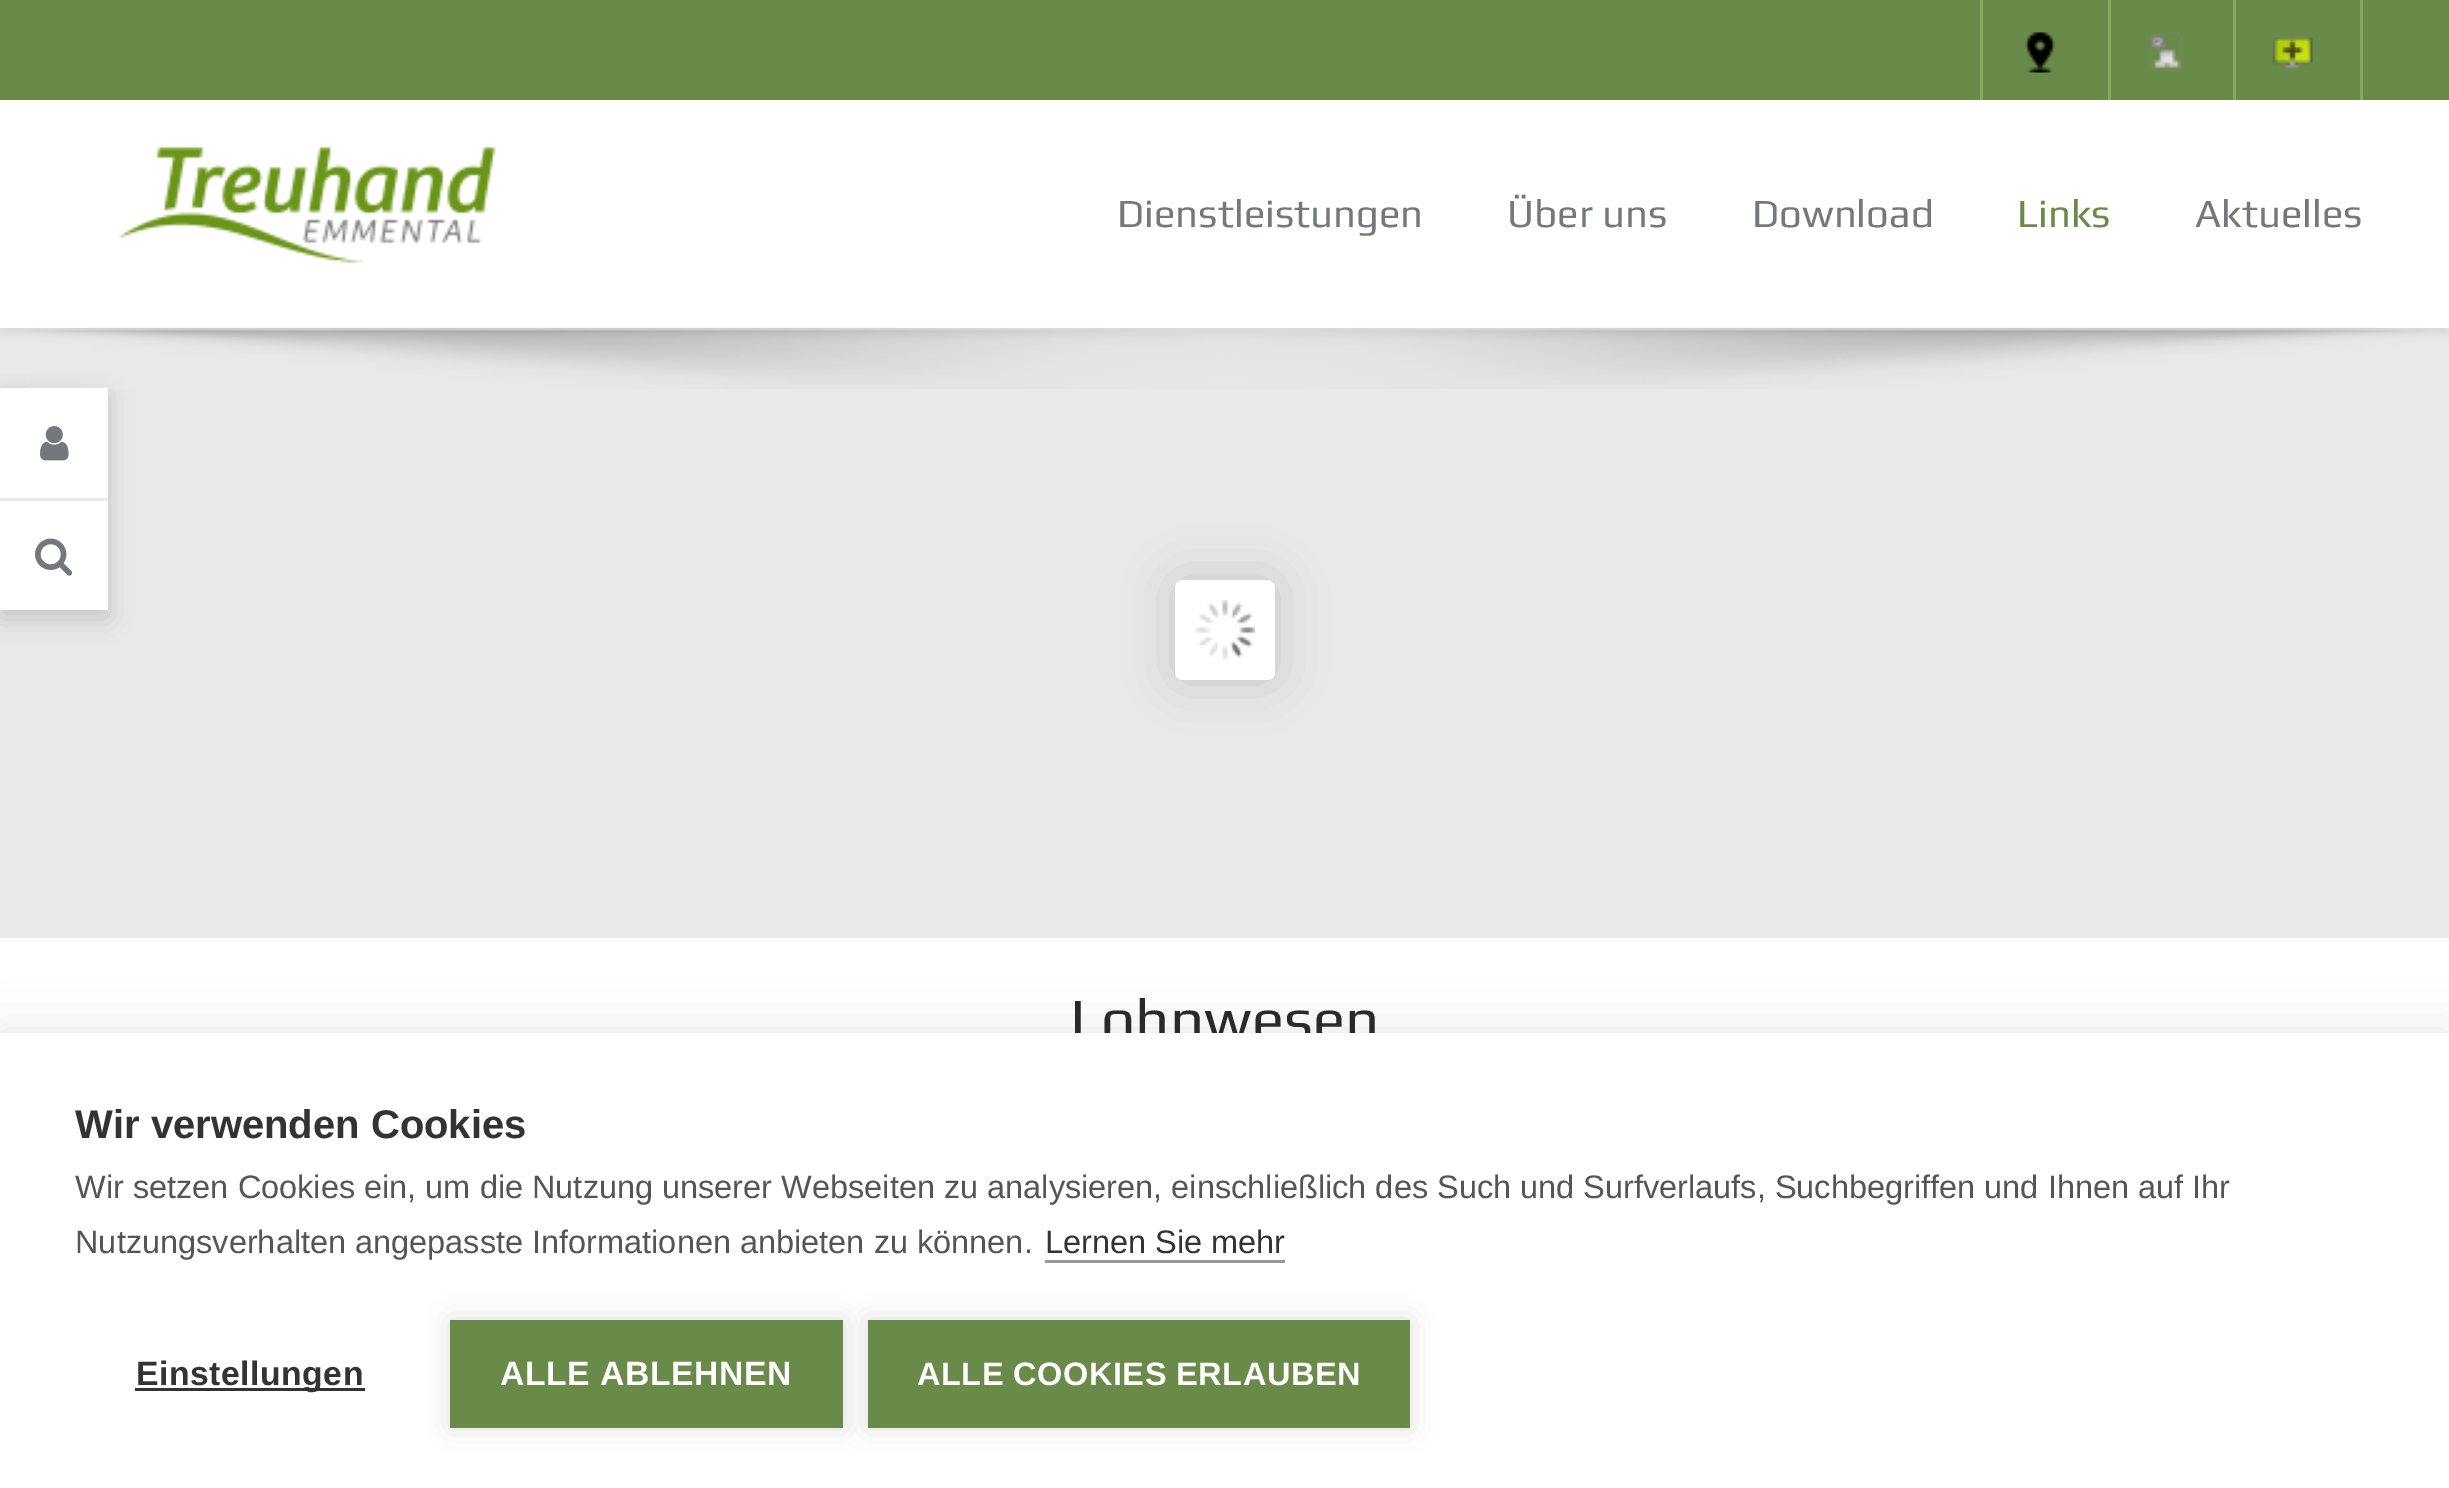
%!PS
<< /PageSize [2449 1488] /PageUsesTransparency true >> setpagedevice
/mt/moveto load def
/fl/fill load def
/co { dup -16 bitshift 255 div exch dup -8 bitshift 255 and 255 div exch 255 and 255 div setrgbcolor } def
/fn { [ exch dup neg 0 0 3 -1 roll 0 0 ] selectfont } def
/tx { co fn moveto show } def
/bx { co rectfill } def
/al { dup .setfillconstantalpha .setstrokeconstantalpha } def
/rr { 5 dict begin { /r /h /w /y /x } { exch def } forall
  x r add y moveto x w add y 2 copy h add r arct x w add y h add x 1 index r arct
  x y h add x y r arct x y 2 copy exch w add exch r arct closepath end } def
/sh { 12 dict begin { /a /b /q /h /w /y /x } { exch def } forall gsave /was 0 def
  9 -2 -9 { dup b mul 4 div /e exch def 1 sub .425 mul 2.718 exch exp 1 add a .99 .min exch div /now exch def
    1 1 now sub 1 was sub div sub al /was now def
    w h .min e 2 mul add 0 gt { x e sub y e sub w e 2 mul add h e 2 mul add
      q e add b .6 mul add w h .min 2 div e add .min 0 .max rr fill } if } for grestore end } def
/im { 5 dict begin { /h /w /y /x /name } { exch def } forall
  gsave x y translate w h scale
  w h 8 [w 0 0 h 0 0] name (r) file false 3 colorimage grestore end } def
0 .pushpdf14devicefilter
0 1488 translate 1 -1 scale
4 setmiterlimit
0 0 2449 1488 16#FFFFFF bx
0 0 2449 100 16#698A48 bx
2108 0 3 100 16#83AA5B bx
1980 0 3 100 16#83AA5B bx
(media/1.raw) 2024 32 32 41 im
2233 0 3 100 16#83AA5B bx
(media/2.raw) 2149 32 34 41 im
2360 0 3 100 16#83AA5B bx
(media/3.raw) 2272 37 41 32 im
0 328 2449 610 16#E9E9E9 bx
16#000000 co
0 108 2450 227 0 4 .05 sh
0 105 2449 223 16#FFFFFF bx
(media/4.raw) 118 146 378 118 im
16#000000 co
0 395 108 223 0 12.5 .15 sh
0 388 108 222 16#FFFFFF bx
(media/5.raw) 26 327 2399 62 im
16#000000 co
1175 580 100 100 8 25 .15 sh
16#FFFFFF co
1175 580 100 100 8 rr fl
(media/6.raw) 1195 600 60 60 im
0 498 108 3 16#E9E9E9 bx
(media/7.raw) 40 426 29 35 im
(media/8.raw) 35 538 38 38 im
16#000000 co
0 1033 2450 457 0 25 .1 sh
(Dienstleistungen) 1117 227 /Play-Regular 40 16#75787B tx
(Über uns) 1507 227 /Play-Regular 40 16#75787B tx
(Download) 1752 227 /Play-Regular 40 16#75787B tx
(Links) 2017 227 /Play-Regular 40 16#698A48 tx
(Aktuelles) 2195 227 /Play-Regular 40 16#75787B tx
(Lohnwesen) 1070 1040 /Play-Regular 60 16#2A2A2A tx
0 1033 2449 455 16#FFFFFF bx
(Wir verwenden Cookies) 75 1138 /LiberationSans-Bold 40 16#333333 tx
(Wir setzen Cookies ein, um die Nutzung unserer Webseiten zu analysieren, einschließlich des Such und Surfverlaufs, Suchbegriffen und Ihnen auf Ihr) 75 1198 /LiberationSans-Regular 32.5 16#555555 tx
(Nutzungsverhalten angepasste Informationen anbieten zu können.) 75 1253 /LiberationSans-Regular 32.5 16#555555 tx
(Lernen Sie mehr) 1045 1253 /LiberationSans-Regular 32.5 16#333333 tx
1045 1260 240 3 16#999999 bx
135 1388 230 3 16#333333 bx
/LiberationSans-Bold 33.75 fn
136 1385 mt .5 0 (Einstellungen) ashow
16#000000 co
450 1320 393 108 0 12.5 .12 sh
450 1320 393 108 16#698A48 bx
16#FFFFFF co
500 1385 mt .5 0 (ALLE ABLEHNEN) ashow
16#000000 co
868 1320 542 108 0 12.5 .12 sh
868 1320 542 108 16#698A48 bx
/LiberationSans-Bold 32.5 fn
16#FFFFFF co
917 1385 mt .5 0 (ALLE COOKIES ERLAUBEN) ashow
.poppdf14devicefilter showpage
